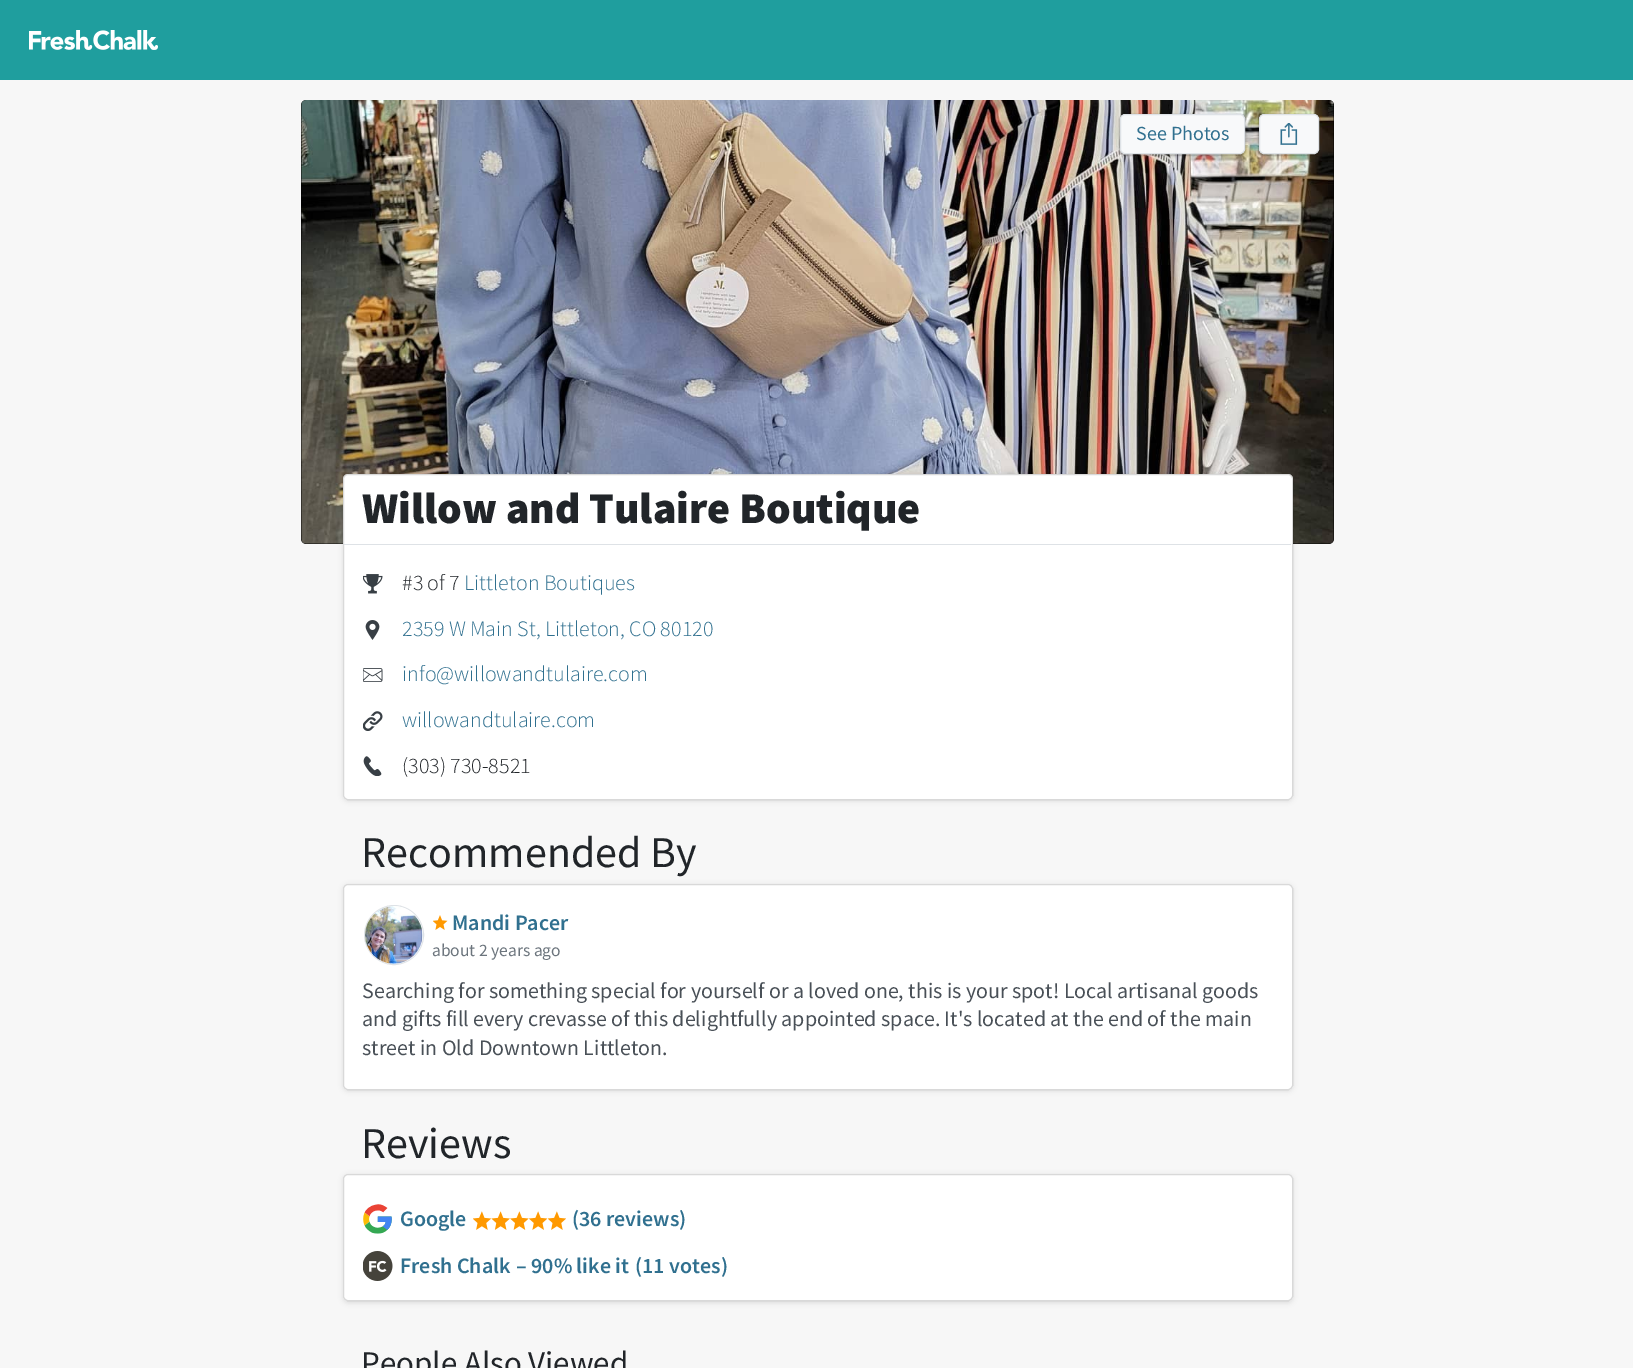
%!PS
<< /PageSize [1633 1368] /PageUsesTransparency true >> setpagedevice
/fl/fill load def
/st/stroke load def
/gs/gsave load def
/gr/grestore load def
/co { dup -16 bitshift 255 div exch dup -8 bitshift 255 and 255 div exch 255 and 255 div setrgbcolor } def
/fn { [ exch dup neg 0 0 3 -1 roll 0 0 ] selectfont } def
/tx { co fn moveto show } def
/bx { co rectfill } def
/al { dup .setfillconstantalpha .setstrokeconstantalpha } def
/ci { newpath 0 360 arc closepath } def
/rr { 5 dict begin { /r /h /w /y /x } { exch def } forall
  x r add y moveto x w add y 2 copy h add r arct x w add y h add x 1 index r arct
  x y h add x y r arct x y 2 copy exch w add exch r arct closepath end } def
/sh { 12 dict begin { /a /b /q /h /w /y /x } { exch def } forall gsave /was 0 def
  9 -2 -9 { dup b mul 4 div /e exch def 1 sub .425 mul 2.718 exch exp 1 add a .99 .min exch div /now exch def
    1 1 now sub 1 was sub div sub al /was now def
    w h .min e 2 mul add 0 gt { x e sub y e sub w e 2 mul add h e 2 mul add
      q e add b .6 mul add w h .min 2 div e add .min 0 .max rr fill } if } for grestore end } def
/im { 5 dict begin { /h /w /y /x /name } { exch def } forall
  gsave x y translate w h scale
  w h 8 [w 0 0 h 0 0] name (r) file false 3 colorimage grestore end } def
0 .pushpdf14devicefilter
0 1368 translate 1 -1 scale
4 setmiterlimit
0 0 1633 1368 16#F7F7F7 bx
0 0 1633 80 16#1F9E9E bx
(media/1.raw) 29 30 129 20 im
16#000000 co
301 100 1033 444 5 rr fl
(media/2.raw) 301 100 1033 444 im
1119 114 127 42 6 .5 .2 sh
16#F8F9FA co
1120.5 114.5 124 39 4.5 rr gs fl gr
16#DEE2E6 co
st
16#000000 co
1258 114 62 42 6 .5 .2 sh
16#F8F9FA co
1259.5 114.5 59 39 4.5 rr gs fl gr
16#DEE2E6 co
st
(media/3.raw) 1280 123 18 22 im
16#000000 co
343 475 950 326 5 2.5 .1 sh
16#FFFFFF co
343 474 950 326 5 rr fl
0.15 al
16#000000 co
343.5 474.5 949 325 4.5 rr st
1 al
344 544 947 1 16#DEE2E6 bx
(media/4.raw) 363 574 20 20 im
(media/5.raw) 365 620 15 20 im
(media/6.raw) 363 668 20 14 im
(media/7.raw) 363 711 20 20 im
(media/8.raw) 363 756 19 20 im
16#000000 co
343 885 950 206 5 2.5 .1 sh
16#FFFFFF co
343 884 950 206 5 rr fl
0.15 al
16#000000 co
343.5 884.5 949 205 4.5 rr st
1 al
16#DEE2E6 co
394 935 29.5 ci st
(media/9.raw) 365 906 58 58 im
(media/10.raw) 433 915 15 15 im
16#000000 co
343 1175 950 128 5 2.5 .1 sh
16#FFFFFF co
343 1174 950 127 5 rr fl
0.15 al
16#000000 co
343.5 1174.5 949 126 4.5 rr st
1 al
(media/11.raw) 363 1204 29 30 im
(media/12.raw) 473 1211 18 19 im
(media/13.raw) 491 1211 19 19 im
(media/14.raw) 510 1211 19 19 im
(media/15.raw) 529 1211 19 19 im
(media/12.raw) 548 1211 18 19 im
(media/16.raw) 363 1251 30 30 im
(See Photos) 1136 140 /SourceSansPro-Regular 20 16#30708F tx
(Willow and Tulaire Boutique) 362 523 /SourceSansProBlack-Black 44 16#212529 tx
(#3 of 7) 402 590 /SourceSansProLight-Light 22 16#212529 tx
(Littleton Boutiques) 464 590 /SourceSansProLight-Light 22 16#30708F tx
(2359 W Main St, Littleton, CO 80120) 402 636 /SourceSansProLight-Light 22 16#30708F tx
(info@willowandtulaire.com) 402 681 /SourceSansProLight-Light 22 16#30708F tx
(willowandtulaire.com) 402 727 /SourceSansProLight-Light 22 16#30708F tx
(\(303\) 730-8521) 402 773 /SourceSansProLight-Light 22 16#212529 tx
(Recommended By) 361 867 /SourceSansPro-Regular 44 16#212529 tx
(Mandi Pacer) 452 930 /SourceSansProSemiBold-SemiBold 22 16#30708F tx
(about 2 years ago) 432 956 /SourceSansPro-Regular 17.5 16#6C757D tx
(Searching for something special for yourself or a loved one, this is your spot! Local artisanal goods) 362 998 /SourceSansPro-Regular 22 16#495057 tx
(and gifts fill every crevasse of this delightfully appointed space. It's located at the end of the main) 362 1026 /SourceSansPro-Regular 22 16#495057 tx
(street in Old Downtown Littleton.) 362 1055 /SourceSansPro-Regular 22 16#495057 tx
(Reviews) 361 1158 /SourceSansPro-Regular 44 16#212529 tx
(Google) 400 1226 /SourceSansProSemiBold-SemiBold 22 16#30708F tx
(\(36 reviews\)) 572 1226 /SourceSansProSemiBold-SemiBold 22 16#30708F tx
(Fresh Chalk) 400 1273 /SourceSansProSemiBold-SemiBold 22 16#30708F tx
(– 90% like it) 516 1273 /SourceSansProSemiBold-SemiBold 22 16#30708F tx
(\(11 votes\)) 635 1273 /SourceSansProSemiBold-SemiBold 22 16#30708F tx
(People Also Viewed) 361 1374 /SourceSansPro-Regular 33 16#212529 tx
.poppdf14devicefilter showpage
